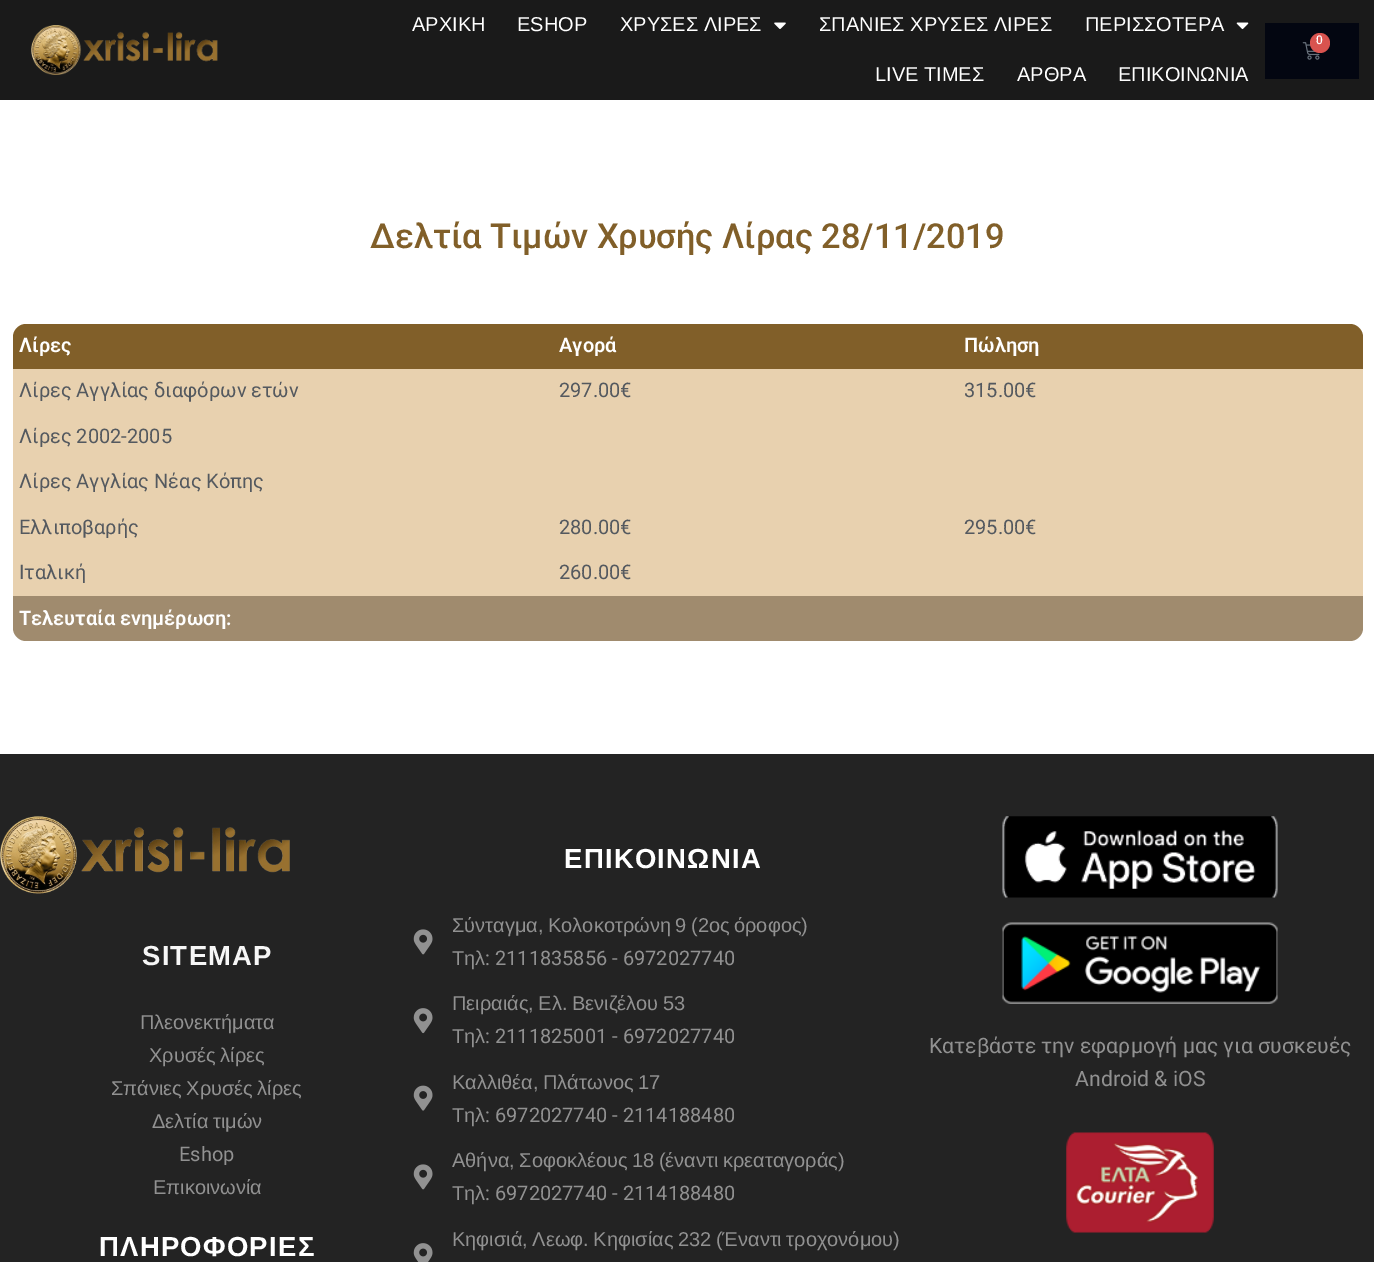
%!PS
<< /PageSize [1374 1262] >> setpagedevice
/mt/moveto load def
/li/lineto load def
/ct/curveto load def
/cp/closepath load def
/fl/fill load def
/co { dup -16 bitshift 255 div exch dup -8 bitshift 255 and 255 div exch 255 and 255 div setrgbcolor } def
/fn { [ exch dup neg 0 0 3 -1 roll 0 0 ] selectfont } def
/tx { co fn moveto show } def
/bx { co rectfill } def
/ci { newpath 0 360 arc closepath } def
/im { 5 dict begin { /h /w /y /x /name } { exch def } forall
  gsave x y translate w h scale
  w h 8 [w 0 0 h 0 0] name (r) file false 3 colorimage grestore end } def
0 1262 translate 1 -1 scale
4 setmiterlimit
0 0 1374 1262 16#FFFFFF bx
0 0 1374 100 16#1A1A1A bx
(media/1.raw) 31 25 187 50 im
(media/2.raw) 774 22 12 7 im
(media/3.raw) 1236 22 13 8 im
1265 23 94 56 16#030611 bx
(media/4.raw) 1302 42 18 18 im
16#D9534F co
1320 43 10 ci fl
16#815F29 co
26 324 mt 553 324 li 553 369 li 13 369 li 13 337 li 13 330 19 324 26 324 ct cp fl
553 324 405 45 16#815F29 bx
958 324 mt 1350 324 li 1357 324 1363 330 1363 337 ct 1363 369 li 958 369 li cp fl
13 369 1350 45 16#E8D1AF bx
13 414 1350 46 16#E8D1AF bx
13 460 1350 45 16#E8D1AF bx
13 505 1350 46 16#E8D1AF bx
13 551 1350 45 16#E8D1AF bx
16#A08B6E co
13 596 mt 553 596 li 553 641 li 26 641 li 19 641 13 635 13 628 ct cp fl
553 596 405 45 16#A08B6E bx
958 596 mt 1363 596 li 1363 628 li 1363 635 1357 641 1350 641 ct 958 641 li cp fl
0 754 1374 508 16#232323 bx
(media/5.raw) 0 816 290 78 im
(media/6.raw) 413 929 20 26 im
(media/7.raw) 413 1008 20 26 im
(media/8.raw) 413 1085 20 26 im
(media/6.raw) 413 1164 20 26 im
(media/9.raw) 413 1243 20 19 im
(media/10.raw) 1002 816 276 82 im
(media/11.raw) 1002 922 276 82 im
(media/12.raw) 1066 1132 148 101 im
(ΑΡΧΙΚΗ) 412 31 /LiberationSans-Regular 20 16#FFFFFF tx
(ESHOP) 517 31 /LiberationSans-Regular 20 16#FFFFFF tx
(ΧΡΥΣΕΣ ΛΙΡΕΣ) 620 31 /LiberationSans-Regular 20 16#FFFFFF tx
(ΣΠΑΝΙΕΣ ΧΡΥΣΕΣ ΛΙΡΕΣ) 819 31 /LiberationSans-Regular 20 16#FFFFFF tx
(ΠΕΡΙΣΣΟΤΕΡΑ) 1085 31 /LiberationSans-Regular 20 16#FFFFFF tx
(LIVE ΤΙΜΕΣ) 875 81 /LiberationSans-Regular 20 16#FFFFFF tx
(ΑΡΘΡΑ) 1017 81 /LiberationSans-Regular 20 16#FFFFFF tx
(ΕΠΙΚΟΙΝΩΝΙΑ) 1118 81 /LiberationSans-Regular 20 16#FFFFFF tx
(0) 1316 44 /Heebo-Medium 12 16#FFFFFF tx
(Δελτία Τιμών Χρυσής Λίρας 28/11/2019) 370 248 /Roboto-Medium 34.4 16#815F29 tx
(Λίρες) 19 352 /Roboto-SemiBold 20 16#FFFFFF tx
(Αγορά) 559 352 /Roboto-SemiBold 20 16#FFFFFF tx
(Πώληση) 964 352 /Roboto-SemiBold 20 16#FFFFFF tx
(Λίρες Αγγλίας διαφόρων ετών) 19 397 /Roboto-Regular 20 16#54595F tx
(297.00€) 559 397 /Roboto-Regular 20 16#54595F tx
(315.00€) 964 397 /Roboto-Regular 20 16#54595F tx
(Λίρες 2002-2005) 19 443 /Roboto-Regular 20 16#54595F tx
(Λίρες Αγγλίας Νέας Κόπης) 19 488 /Roboto-Regular 20 16#54595F tx
(Ελλιποβαρής) 19 534 /Roboto-Regular 20 16#54595F tx
(280.00€) 559 534 /Roboto-Regular 20 16#54595F tx
(295.00€) 964 534 /Roboto-Regular 20 16#54595F tx
(Ιταλική) 19 579 /Roboto-Regular 20 16#54595F tx
(260.00€) 559 579 /Roboto-Regular 20 16#54595F tx
(Τελευταία ενημέρωση:) 19 625 /Roboto-SemiBold 20 16#FFFFFF tx
/LiberationSans-Bold 27.5 fn
16#F6F6F6 co
142 965 mt 1.25 0 (SITEMAP) ashow
(Πλεονεκτήματα) 140 1029 /LiberationSans-Regular 20 16#919191 tx
149 1062 mt -1 0 32 (Χρυσές λίρες) widthshow
111 1095 mt -1 0 32 (Σπάνιες Χρυσές λίρες) widthshow
152 1128 mt -1 0 32 (Δελτία τιμών) widthshow
(Eshop) 179 1161 /Heebo-Regular 20 16#919191 tx
(Επικοινωνία) 153 1194 /LiberationSans-Regular 20 16#919191 tx
/LiberationSans-Bold 27.5 fn
16#FFFFFF co
99 1256 mt 1.25 0 (ΠΛΗΡΟΦΟΡΙΕΣ) ashow
564 868 mt 1.25 0 (ΕΠΙΚΟΙΝΩΝΙΑ) ashow
/LiberationSans-Regular 20 fn
16#919191 co
452 932 mt -1 0 32 (Σύνταγμα, Κολοκοτρώνη 9 \(2ος όροφος\)) widthshow
(Τηλ) 452 965 /LiberationSans-Regular 20 16#919191 tx
(: 2111835856 - 6972027740) 485 965 /Heebo-Regular 20 16#919191 tx
/LiberationSans-Regular 20 fn
452 1010 mt -1 0 32 (Πειραιάς, Ελ. Βενιζέλου 53) widthshow
(Τηλ) 452 1043 /LiberationSans-Regular 20 16#919191 tx
(: 2111825001 - 6972027740) 485 1043 /Heebo-Regular 20 16#919191 tx
/LiberationSans-Regular 20 fn
452 1089 mt -1 0 32 (Καλλιθέα, Πλάτωνος 17) widthshow
(Τηλ) 452 1122 /LiberationSans-Regular 20 16#919191 tx
(: 6972027740 - 2114188480) 485 1122 /Heebo-Regular 20 16#919191 tx
/LiberationSans-Regular 20 fn
452 1167 mt -1 0 32 (Aθήνα, Σοφοκλέους 18 \(έναντι κρεαταγοράς\)) widthshow
(Τηλ) 452 1200 /LiberationSans-Regular 20 16#919191 tx
(: 6972027740 - 2114188480) 485 1200 /Heebo-Regular 20 16#919191 tx
/LiberationSans-Regular 20 fn
452 1246 mt -1 0 32 (Κηφισιά, Λεωφ. Κηφισίας 232 \(Έναντι τροχονόμου\)) widthshow
(Κατεβάστε την εφαρμογή μας για συσκευές) 929 1053 /Roboto-Regular 21.25 16#919191 tx
(Android & iOS) 1075 1086 /Roboto-Regular 21.25 16#919191 tx
showpage
